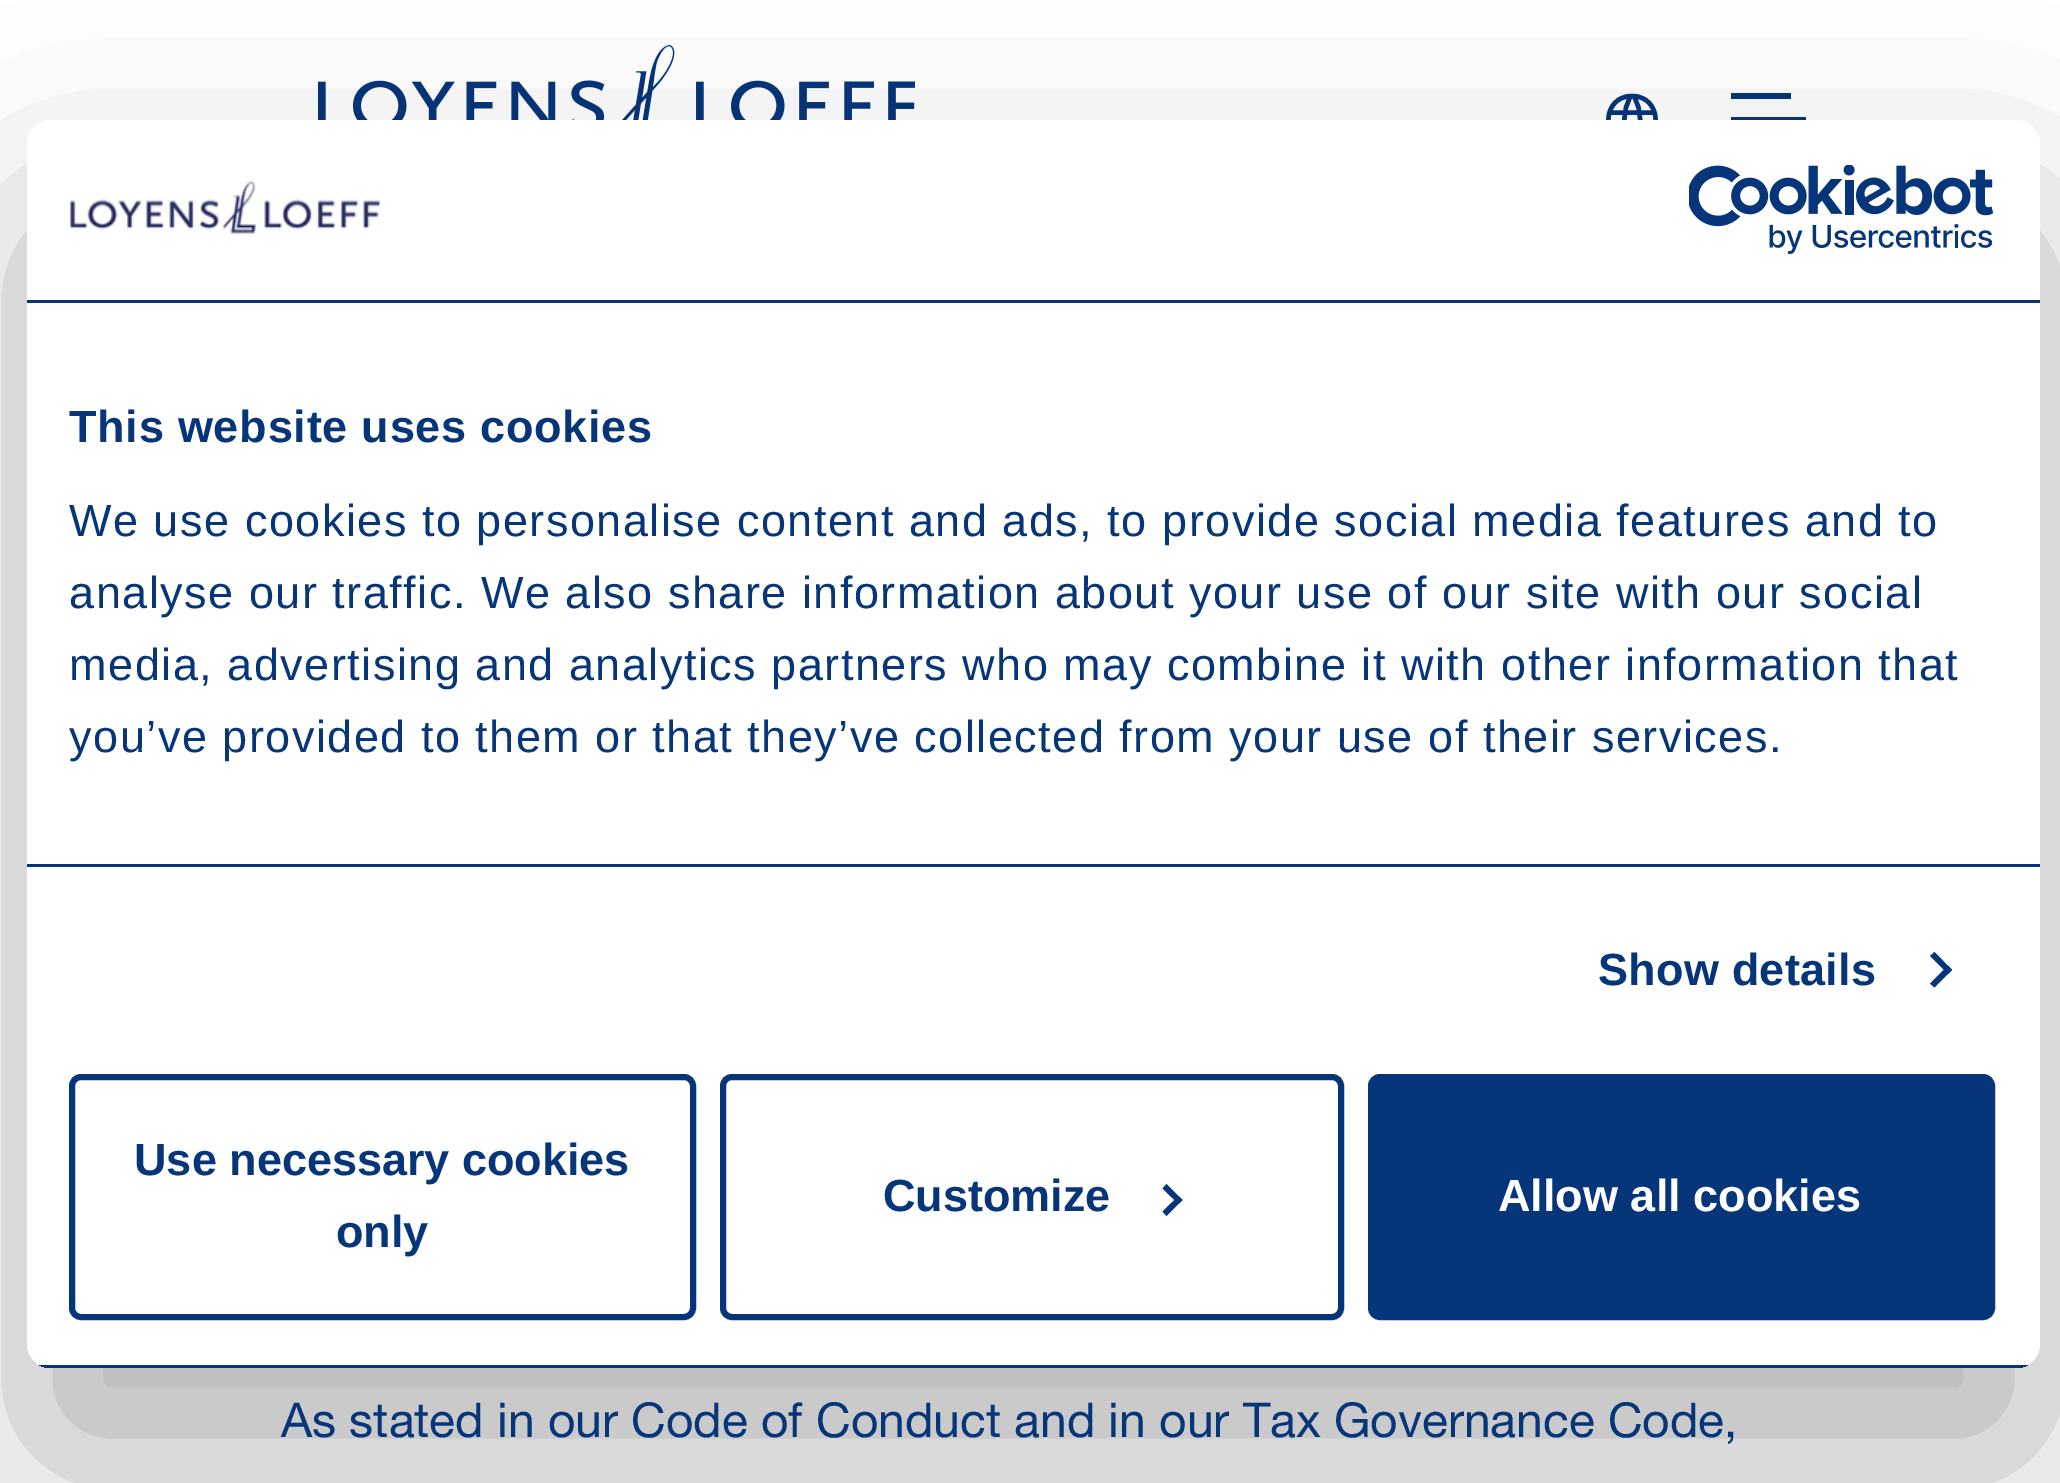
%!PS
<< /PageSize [2060 1483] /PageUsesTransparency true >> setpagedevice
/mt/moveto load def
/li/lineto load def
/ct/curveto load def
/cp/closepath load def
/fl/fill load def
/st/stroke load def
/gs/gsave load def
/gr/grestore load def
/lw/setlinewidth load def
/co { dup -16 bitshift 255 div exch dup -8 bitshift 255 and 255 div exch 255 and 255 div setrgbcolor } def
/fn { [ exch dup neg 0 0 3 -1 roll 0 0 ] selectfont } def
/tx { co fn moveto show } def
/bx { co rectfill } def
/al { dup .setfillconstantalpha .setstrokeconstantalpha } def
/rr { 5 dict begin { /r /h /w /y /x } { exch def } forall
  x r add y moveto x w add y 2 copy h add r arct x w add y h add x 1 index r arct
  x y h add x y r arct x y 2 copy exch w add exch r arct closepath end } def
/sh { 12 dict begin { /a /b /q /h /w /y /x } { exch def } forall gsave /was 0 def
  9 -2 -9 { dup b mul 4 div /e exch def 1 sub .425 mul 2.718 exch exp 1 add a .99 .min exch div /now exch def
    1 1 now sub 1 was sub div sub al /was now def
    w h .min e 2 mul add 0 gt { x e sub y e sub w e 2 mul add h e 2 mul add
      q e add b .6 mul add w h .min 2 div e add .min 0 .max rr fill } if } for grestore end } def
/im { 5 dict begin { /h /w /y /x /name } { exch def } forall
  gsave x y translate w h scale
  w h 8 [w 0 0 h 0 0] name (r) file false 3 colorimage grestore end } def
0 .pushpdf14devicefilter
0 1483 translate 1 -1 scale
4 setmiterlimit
0 0 2060 1483 16#FFFFFF bx
(media/1.raw) 318 45 597 75 im
16#06357A co
4.5 lw
1 setlinecap
1 setlinejoin
1632 144 mt 1600.5 144 1600.5 96 1632 96 ct 1663.5 96 1663.5 144 1632 144 ct cp 1611 112.5 mt 1653 112.5 li 1611 127.5 mt 1653 127.5 li 1631 96 mt 1622 110.5 1622 129.5 1631 144 ct 1633.5 96 mt 1642.5 110.5 1642.5 129.5 1633.5 144 ct st
1731 93 60 6 16#06357A bx
1731 117 75 3 16#06357A bx
gs
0 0 mt 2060 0 li 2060 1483 li 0 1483 li cp 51 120 mt 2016 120 li 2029.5 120 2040 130.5 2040 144 ct 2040 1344 li 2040 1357.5 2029.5 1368 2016 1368 ct 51 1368 li 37.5 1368 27 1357.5 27 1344 ct 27 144 li 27 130.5 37.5 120 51 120 ct cp eoclip newpath
16#000000 co
27 216 2013 1248 24 102 .3 sh
gr
16#FFFFFF co
27 120 2013 1248 24 rr fl
27 300 2013 3 16#06357A bx
(media/2.raw) 70 180 311 55 im
(media/3.raw) 1689 165 305 89 im
27 864 2013 3 16#06357A bx
1934.5 952 mt 1952 970 li 1948 974 li 1930 956 li cp fl
1948 965.5 mt 1952 970 li 1934.5 987.5 li 1930 983.5 li cp fl
gs
27 120 2013 1248 24 rr clip newpath
39 1365 1989 3 16#06357A bx
gr
6 lw
0 setlinecap
0 setlinejoin
72 1077 621 240 9 rr st
723 1077 618 240 9 rr st
1166.5 1184 mt 1182.5 1200 li 1178.5 1204 li 1162.5 1188.5 li cp fl
1178.5 1196 mt 1182.5 1200 li 1166.5 1216 li 1162.5 1211.5 li cp fl
1371 1077 621 240 9 rr gs fl gr
st
/LiberationSans-Bold 45 fn
69 442 mt .75 0 (This website uses cookies) ashow
/LiberationSans-Regular 45 fn
69 536 mt 1.5 0 (We use cookies to personalise content and ads, to provide social media features and to) ashow
69 608 mt 1.5 0 (analyse our traffic. We also share information about your use of our site with our social) ashow
69 680 mt 1.5 0 (media, advertising and analytics partners who may combine it with other information that) ashow
69 752 mt 1.5 0 (you’ve provided to them or that they’ve collected from your use of their services.) ashow
/LiberationSans-Bold 45 fn
1598 985 mt .25 0 (Show details) ashow
(Use necessary cookies) 134 1175 /LiberationSans-Bold 45 16#06357A tx
(only) 336 1247 /LiberationSans-Bold 45 16#06357A tx
(Customize) 883 1211 /LiberationSans-Bold 45 16#06357A tx
(Allow all cookies) 1498 1211 /LiberationSans-Bold 45 16#FFFFFF tx
(As stated in our Code of Conduct and in our Tax Governance Code,) 281 1437 /HelveticaNeue-Regular 48 16#06357A tx
.poppdf14devicefilter showpage
